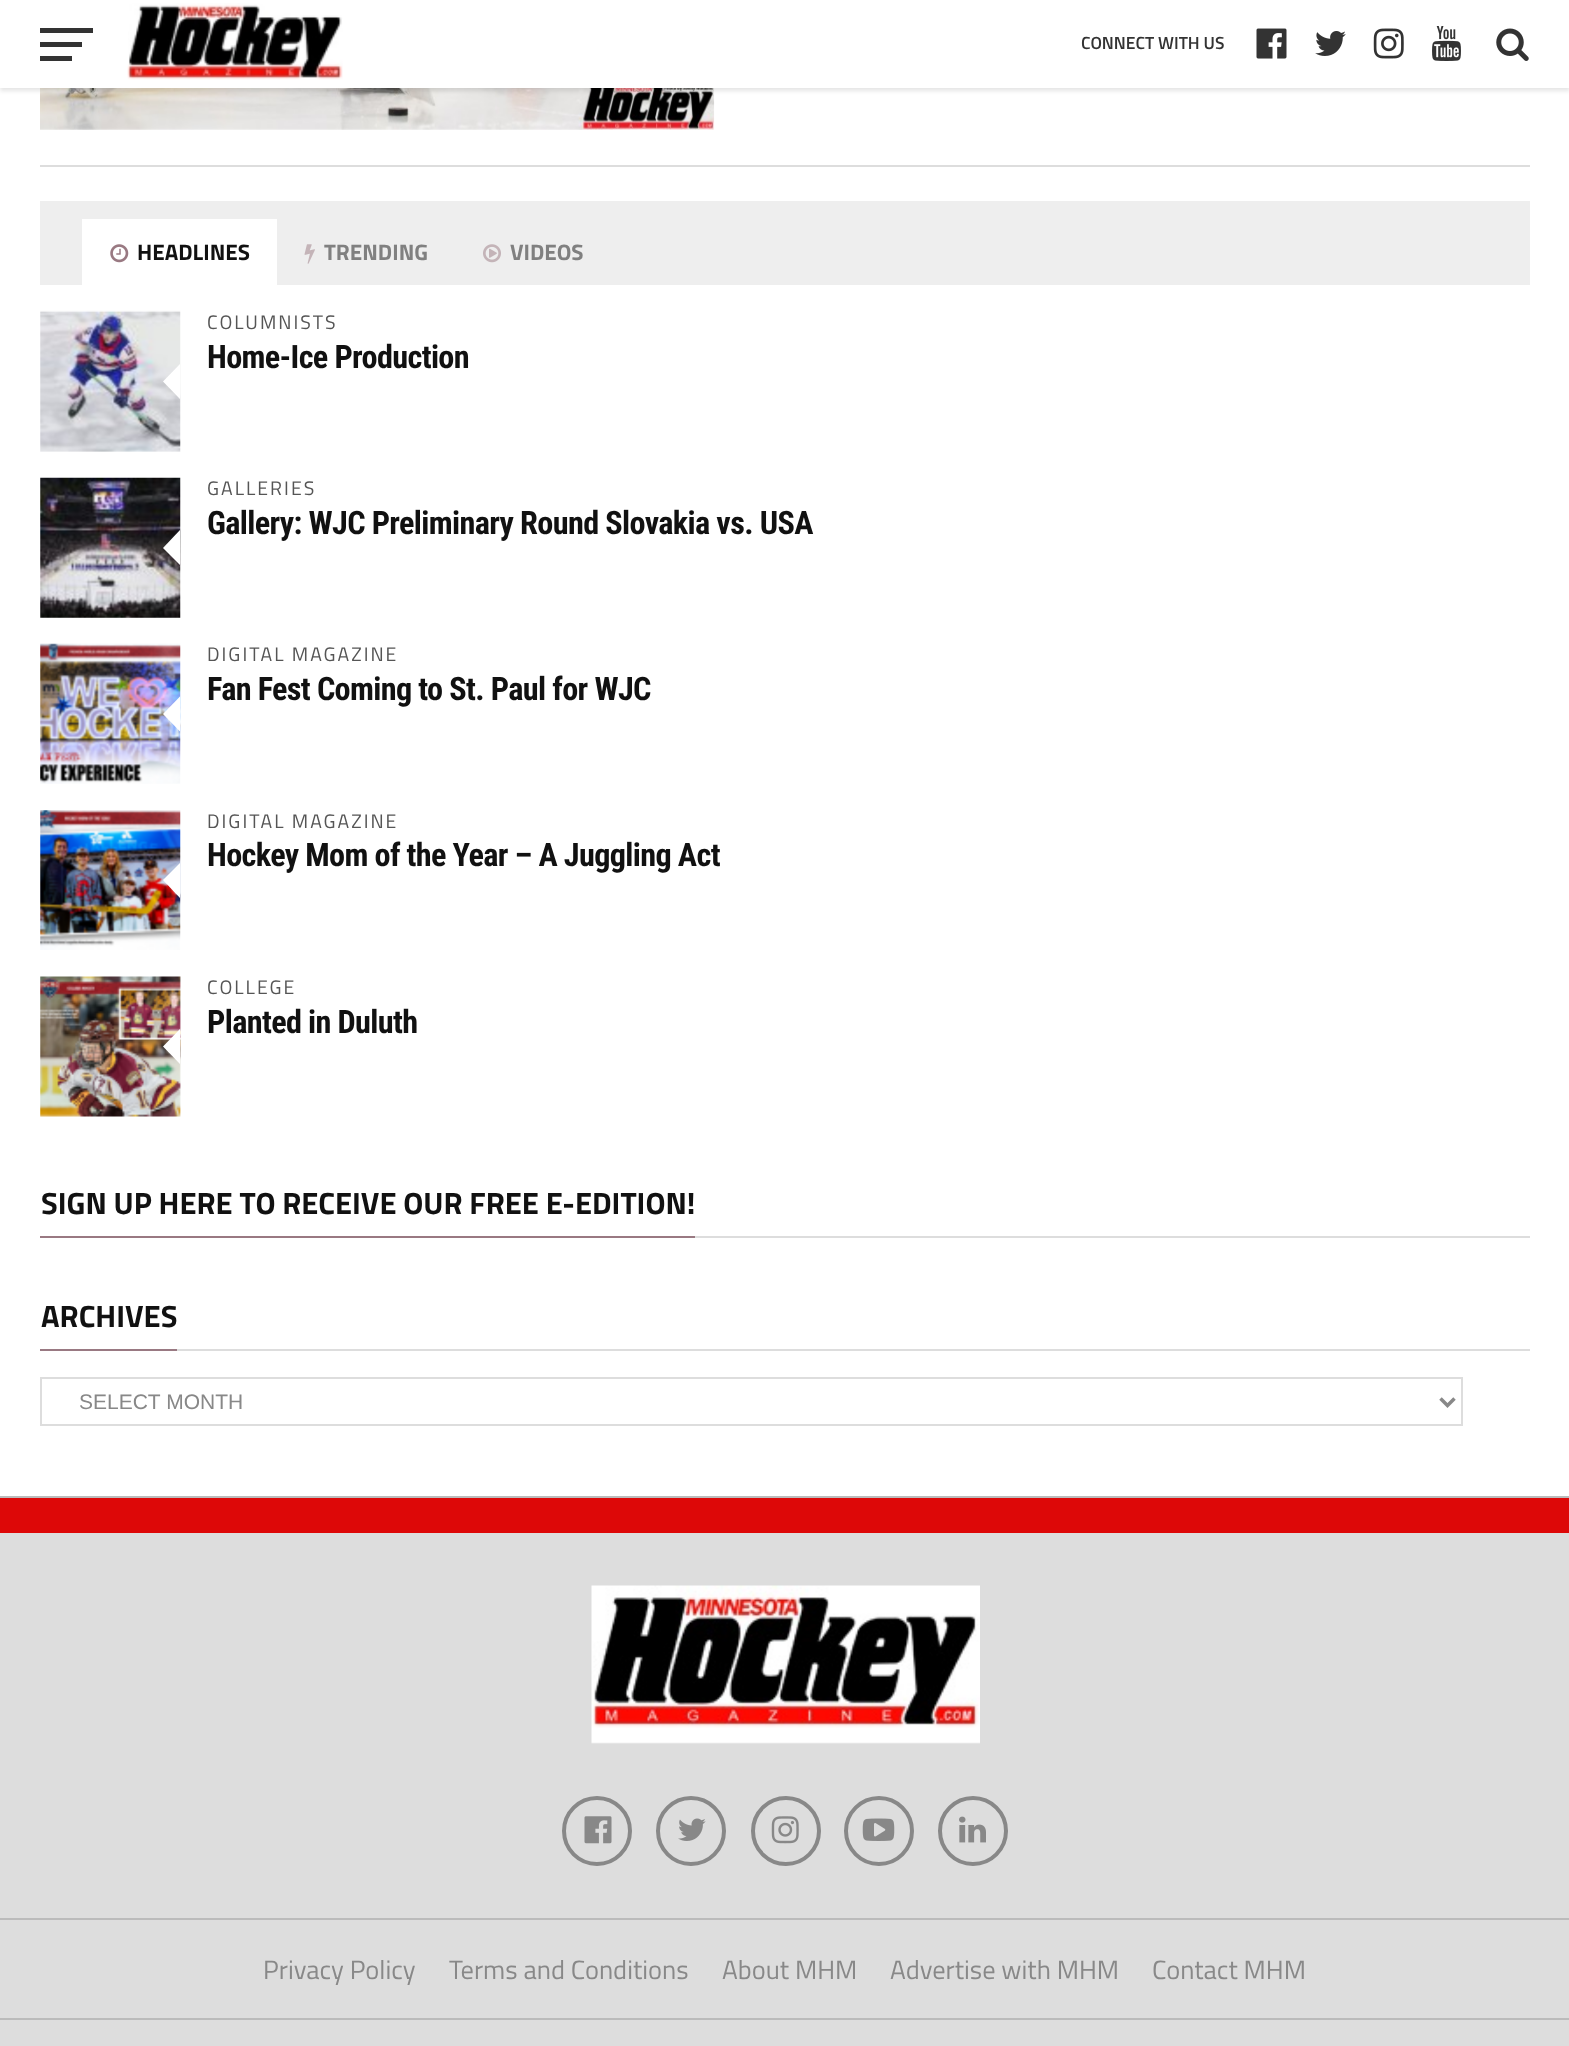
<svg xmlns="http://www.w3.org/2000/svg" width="1569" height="2046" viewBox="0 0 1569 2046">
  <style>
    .t1 { font: 600 17.5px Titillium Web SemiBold; fill: #333; }
    .t2 { font: bold 22.5px Titillium Web; fill: #111; }
    .t3 { font: bold 22.5px Titillium Web; fill: #808080; }
    .t4 { font: 19.5px Titillium Web; letter-spacing: 2px; fill: #555; }
    .t5 { font: bold 32.25px Roboto Condensed; letter-spacing: -0.65px; fill: #111; }
    .t6 { font: bold 30.8px Titillium Web; fill: #111; }
    .t7 { font: 21px Liberation Sans; fill: #888; }
    .t8 { font: 26.5px Titillium Web; fill: #888; }
  </style>
  <rect width="100%" height="100%" fill="#dd0808"/>
  <rect x="0" y="88" width="1569" height="1408" fill="#fff"/>
  <image x="40" y="88" width="675" height="42" href="images/7.png"/>
  <rect x="0" y="4" width="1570" height="87" fill="#0000001a" filter="blur(2px)"/>
  <rect x="0" y="0" width="1569" height="88" fill="#fff"/>
  <rect x="40" y="28" width="53" height="5" fill="#333"/>
  <rect x="40" y="42" width="42" height="5" fill="#333"/>
  <rect x="40" y="56" width="32" height="5" fill="#333"/>
  <image x="127" y="3" width="216" height="77" href="images/1.png"/>
  <text x="1081" y="49" class="t1">CONNECT WITH US</text>
  <image x="1256" y="28" width="31" height="31" href="images/2.png"/>
  <image x="1315" y="31" width="31" height="25" href="images/3.png"/>
  <image x="1373" y="28" width="31" height="31" href="images/4.png"/>
  <image x="1432" y="26" width="29" height="35" href="images/5.png"/>
  <image x="1496" y="28" width="33" height="33" href="images/6.png"/>
  <rect x="0" y="1496" width="1569" height="2" fill="#bbb"/>
  <rect x="40" y="165" width="1490" height="2" fill="#ddd"/>
  <rect x="40" y="201" width="1490" height="84" fill="#eee"/>
  <rect x="82" y="219" width="195" height="66" fill="#fff"/>
  <image x="110" y="244" width="19" height="19" href="images/8.png"/>
  <text x="137" y="260" class="t2">HEADLINES</text>
  <image x="304" y="244" width="11" height="20" href="images/9.png"/>
  <text x="324" y="260" class="t3">TRENDING</text>
  <image x="483" y="244" width="18" height="19" href="images/10.png"/>
  <text x="510" y="260" class="t3">VIDEOS</text>
  <image x="40" y="310" width="141" height="142" href="images/11.png"/>
  <path d="M180 364V399L163 381.5Z" fill="#fff"/>
  <text x="207" y="329" class="t4">COLUMNISTS</text>
  <text x="207" y="368" class="t5">Home-Ice Production</text>
  <image x="40" y="477" width="141" height="141" href="images/12.png"/>
  <path d="M180 530V565L163 548Z" fill="#fff"/>
  <text x="207" y="495" class="t4">GALLERIES</text>
  <text x="207" y="534" class="t5">Gallery: WJC Preliminary Round Slovakia vs. USA</text>
  <image x="40" y="643" width="141" height="141" href="images/13.png"/>
  <path d="M180 696.5V731.5L163 714Z" fill="#fff"/>
  <text x="207" y="661" class="t4">DIGITAL MAGAZINE</text>
  <text x="207" y="700" class="t5">Fan Fest Coming to St. Paul for WJC</text>
  <image x="40" y="810" width="141" height="140" href="images/14.png"/>
  <path d="M180 863V898L163 880Z" fill="#fff"/>
  <text x="207" y="828" class="t4">DIGITAL MAGAZINE</text>
  <text x="207" y="866" class="t5">Hockey Mom of the Year – A Juggling Act</text>
  <image x="40" y="976" width="141" height="141" href="images/15.png"/>
  <path d="M180 1029V1064L163 1046.5Z" fill="#fff"/>
  <text x="207" y="994" class="t4">COLLEGE</text>
  <text x="207" y="1033" class="t5">Planted in Duluth</text>
  <rect x="695" y="1236" width="835" height="2" fill="#ddd"/>
  <rect x="40" y="1236" width="655" height="2" fill="#997982"/>
  <text x="41" y="1214" class="t6">SIGN UP HERE TO RECEIVE OUR FREE E-EDITION!</text>
  <rect x="177" y="1349" width="1353" height="2" fill="#ddd"/>
  <rect x="40" y="1349" width="137" height="2" fill="#997982"/>
  <text x="41" y="1327" class="t6">ARCHIVES</text>
  <rect x="41" y="1378" width="1421" height="47" fill="none" stroke="#ddd" stroke-width="2"/>
  <path d="M1440.5 1398.5L1447.5 1405.5L1454.5 1398.5" fill="none" stroke="#888" stroke-width="3.5"/>
  <text x="79" y="1409" class="t7">SELECT MONTH</text>
  <rect x="0" y="1533" width="1569" height="513" fill="#ddd"/>
  <image x="591" y="1585" width="389" height="159" href="images/16.png"/>
  <circle cx="597" cy="1831" r="33" fill="none" stroke="#888" stroke-width="4"/>
  <image x="584" y="1816" width="28" height="28" href="images/17.png"/>
  <circle cx="691" cy="1831" r="33" fill="none" stroke="#888" stroke-width="4"/>
  <image x="678" y="1818" width="28" height="23" href="images/18.png"/>
  <circle cx="786" cy="1831" r="33" fill="none" stroke="#888" stroke-width="4"/>
  <image x="771" y="1816" width="28" height="28" href="images/19.png"/>
  <circle cx="879" cy="1831" r="33" fill="none" stroke="#888" stroke-width="4"/>
  <image x="862" y="1818" width="33" height="23" href="images/20.png"/>
  <circle cx="973" cy="1831" r="33" fill="none" stroke="#888" stroke-width="4"/>
  <image x="959" y="1816" width="27" height="27" href="images/21.png"/>
  <rect x="0" y="1918" width="1569" height="2" fill="#bbb"/>
  <rect x="0" y="2018" width="1569" height="2" fill="#bbb"/>
  <text x="263" y="1979" class="t8">Privacy Policy</text>
  <text x="449" y="1979" class="t8">Terms and Conditions</text>
  <text x="722" y="1979" class="t8">About MHM</text>
  <text x="890" y="1979" class="t8">Advertise with MHM</text>
  <text x="1152" y="1979" class="t8">Contact MHM</text>
</svg>
